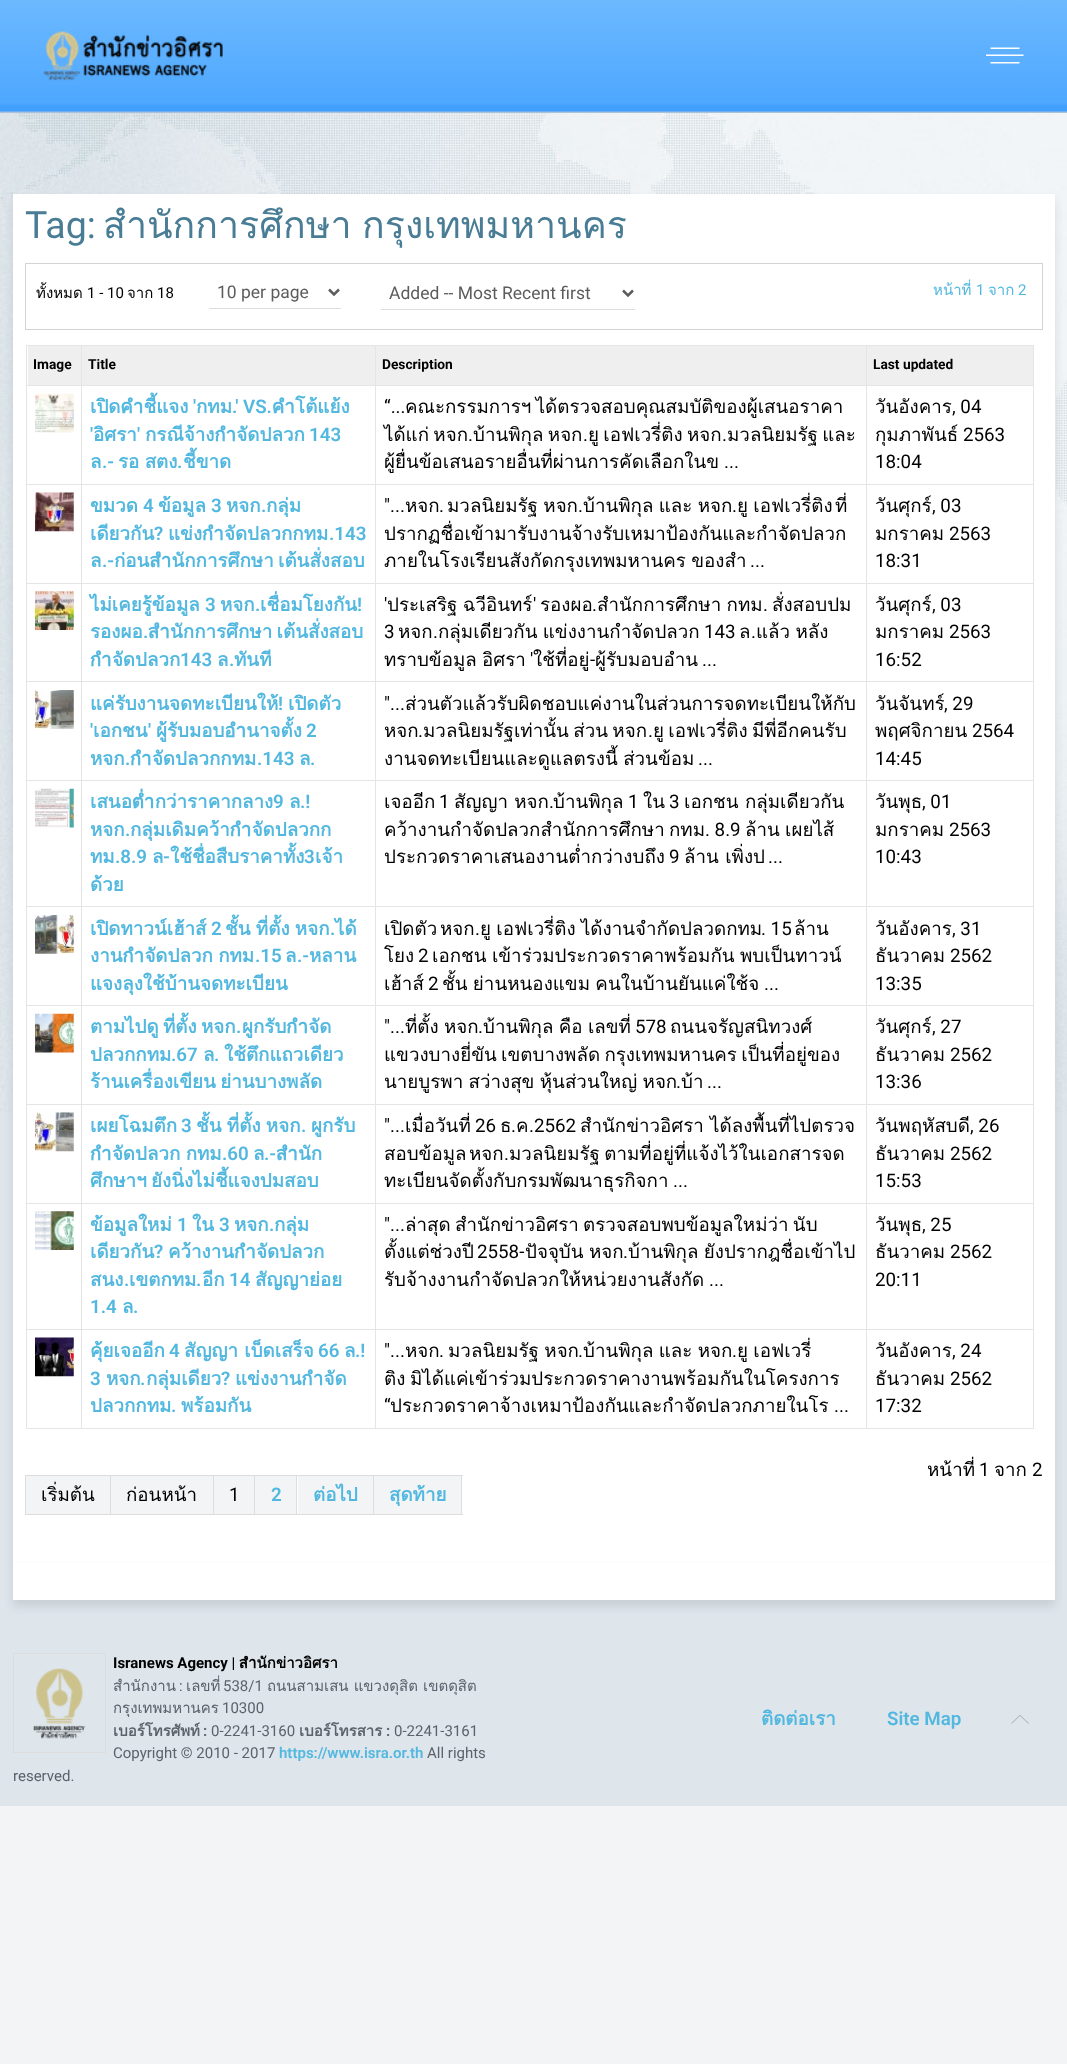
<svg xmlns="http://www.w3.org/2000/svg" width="1067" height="2064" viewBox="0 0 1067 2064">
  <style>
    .t1 { font: 37.5px Roboto; fill: #497c95; }
    .t2 { font: 37.5px Loma; fill: #497c95; }
    .t3 { font: 15px Loma; fill: #000; }
    .t4 { font: 15px Roboto; fill: #000; }
    .t5 { font: 17.5px Roboto; fill: #5c5c5c; }
    .t6 { font: 15px Loma; fill: #52b8df; }
    .t7 { font: 15px Roboto; fill: #52b8df; }
    .t8 { font: bold 13.75px Roboto; fill: #000; }
    .t9 { font: bold 18.75px Loma; fill: #52b8df; }
    .t10 { font: 600 18.75px Roboto; fill: #52b8df; }
    .t11 { font: 18.75px Roboto; fill: #000; }
    .t12 { font: 18.75px Loma; fill: #000; }
    .t13 { font: bold 15px Roboto; fill: #000; }
    .t14 { font: bold 15px Loma; fill: #000; }
    .t15 { font: 15px Loma; fill: #5c626b; }
    .t16 { font: 15px Roboto; fill: #5c626b; }
    .t17 { font: bold 15px Loma; fill: #5c626b; }
    .t18 { font: bold 15px Roboto; fill: #5c626b; }
    .t19 { font: 600 15px Roboto; fill: #52b8df; }
  </style>
  <defs>
    <linearGradient id="g1" gradientUnits="userSpaceOnUse" x1="534" y1="0" x2="534" y2="113"><stop offset="0" stop-color="#6dbaff"/><stop offset="0.04" stop-color="#6bb8ff"/><stop offset="0.91" stop-color="#4ea8ff"/><stop offset="0.94" stop-color="#419fff"/><stop offset="0.98" stop-color="#419fff"/><stop offset="1" stop-color="#c8cdd3"/></linearGradient>
  </defs>
  <rect width="100%" height="100%" fill="#f2f4f5"/>
  <rect x="0" y="1112" width="1067" height="694" fill="#dee5eb"/>
  <image x="0" y="113" width="1067" height="1000" href="images/1.png"/>
  <rect x="0" y="0" width="1067" height="113" fill="url(#g1)"/>
  <image x="43" y="31" width="180" height="50" href="images/2.png"/>
  <path d="M990.5 47.5H1019.5V49H990.5ZM990.5 62H1019.5V63.5H990.5ZM986 54.5H1023.5V56H986Z" fill="#fff"/>
  <rect x="13" y="200" width="1042" height="1369" fill="#a0a6a859" filter="blur(5px)"/>
  <rect x="13" y="194" width="1042" height="1369" fill="#fff"/>
  <text x="25" y="238" class="t1">Tag:</text>
  <text x="103" y="238" word-spacing="-2" class="t2">สำนักการศึกษา กรุงเทพมหานคร</text>
  <rect x="25.5" y="263.5" width="1017" height="66" fill="none" stroke="#d3d3d3"/>
  <text x="36" y="298" class="t3">ทั้งหมด</text>
  <text x="87" y="298" class="t4">1 - 10</text>
  <text x="127" y="298" class="t3">จาก</text>
  <text x="157" y="298" class="t4">18</text>
  <rect x="209" y="308" width="132" height="1" fill="#ddd"/>
  <path d="M329 289.5L334 294.5L339 289.5" fill="none" stroke="#5c5c5c" stroke-width="2.5"/>
  <text x="217" y="298" class="t5">10 per page</text>
  <rect x="381" y="309" width="254" height="1" fill="#ddd"/>
  <path d="M623 290.5L628 295.5L633 290.5" fill="none" stroke="#5c5c5c" stroke-width="2.5"/>
  <text x="389" y="299" class="t5">Added -- Most Recent first</text>
  <text x="933" y="295" class="t6">หน้าที่</text>
  <text x="976" y="295" class="t7">1</text>
  <text x="988" y="295" class="t6">จาก</text>
  <text x="1018" y="295" class="t7">2</text>
  <rect x="26" y="345" width="1008" height="1" fill="#e5e5e5"/>
  <rect x="1033" y="345" width="1" height="1084" fill="#e5e5e5"/>
  <rect x="26" y="1428" width="1008" height="1" fill="#e5e5e5"/>
  <rect x="26" y="345" width="1" height="1084" fill="#e5e5e5"/>
  <rect x="28" y="346" width="347" height="39" fill="#efefef"/>
  <rect x="866" y="1329" width="1" height="100" fill="#e5e5e5"/>
  <rect x="866" y="1329" width="168" height="1" fill="#e5e5e5"/>
  <rect x="866" y="1203" width="1" height="127" fill="#e5e5e5"/>
  <rect x="866" y="1203" width="168" height="1" fill="#e5e5e5"/>
  <rect x="866" y="1104" width="1" height="100" fill="#e5e5e5"/>
  <rect x="866" y="1104" width="168" height="1" fill="#e5e5e5"/>
  <rect x="866" y="1005" width="1" height="100" fill="#e5e5e5"/>
  <rect x="866" y="1005" width="168" height="1" fill="#e5e5e5"/>
  <rect x="866" y="906" width="1" height="100" fill="#e5e5e5"/>
  <rect x="866" y="906" width="168" height="1" fill="#e5e5e5"/>
  <rect x="866" y="780" width="1" height="128" fill="#e5e5e5"/>
  <rect x="866" y="780" width="168" height="1" fill="#e5e5e5"/>
  <rect x="866" y="681" width="1" height="100" fill="#e5e5e5"/>
  <rect x="866" y="681" width="168" height="1" fill="#e5e5e5"/>
  <rect x="866" y="583" width="1" height="100" fill="#e5e5e5"/>
  <rect x="866" y="583" width="168" height="1" fill="#e5e5e5"/>
  <rect x="866" y="484" width="1" height="100" fill="#e5e5e5"/>
  <rect x="866" y="484" width="168" height="1" fill="#e5e5e5"/>
  <rect x="866" y="385" width="1" height="100" fill="#e5e5e5"/>
  <rect x="866" y="385" width="168" height="1" fill="#e5e5e5"/>
  <rect x="866" y="345" width="1" height="41" fill="#e5e5e5"/>
  <rect x="375" y="1329" width="1" height="100" fill="#e5e5e5"/>
  <rect x="375" y="1329" width="493" height="1" fill="#e5e5e5"/>
  <rect x="375" y="1203" width="1" height="127" fill="#e5e5e5"/>
  <rect x="375" y="1203" width="493" height="1" fill="#e5e5e5"/>
  <rect x="375" y="1104" width="1" height="100" fill="#e5e5e5"/>
  <rect x="375" y="1104" width="493" height="1" fill="#e5e5e5"/>
  <rect x="375" y="1005" width="1" height="100" fill="#e5e5e5"/>
  <rect x="375" y="1005" width="493" height="1" fill="#e5e5e5"/>
  <rect x="375" y="906" width="1" height="100" fill="#e5e5e5"/>
  <rect x="375" y="906" width="493" height="1" fill="#e5e5e5"/>
  <rect x="375" y="780" width="1" height="128" fill="#e5e5e5"/>
  <rect x="375" y="780" width="493" height="1" fill="#e5e5e5"/>
  <rect x="375" y="681" width="1" height="100" fill="#e5e5e5"/>
  <rect x="375" y="681" width="493" height="1" fill="#e5e5e5"/>
  <rect x="375" y="583" width="1" height="100" fill="#e5e5e5"/>
  <rect x="375" y="583" width="493" height="1" fill="#e5e5e5"/>
  <rect x="375" y="484" width="1" height="100" fill="#e5e5e5"/>
  <rect x="375" y="484" width="493" height="1" fill="#e5e5e5"/>
  <rect x="375" y="385" width="1" height="100" fill="#e5e5e5"/>
  <rect x="375" y="385" width="493" height="1" fill="#e5e5e5"/>
  <rect x="375" y="345" width="1" height="41" fill="#e5e5e5"/>
  <rect x="81" y="1329" width="1" height="100" fill="#e5e5e5"/>
  <rect x="81" y="1329" width="295" height="1" fill="#e5e5e5"/>
  <rect x="81" y="1203" width="1" height="127" fill="#e5e5e5"/>
  <rect x="81" y="1203" width="295" height="1" fill="#e5e5e5"/>
  <rect x="81" y="1104" width="1" height="100" fill="#e5e5e5"/>
  <rect x="81" y="1104" width="295" height="1" fill="#e5e5e5"/>
  <rect x="81" y="1005" width="1" height="100" fill="#e5e5e5"/>
  <rect x="81" y="1005" width="295" height="1" fill="#e5e5e5"/>
  <rect x="81" y="906" width="1" height="100" fill="#e5e5e5"/>
  <rect x="81" y="906" width="295" height="1" fill="#e5e5e5"/>
  <rect x="81" y="780" width="1" height="128" fill="#e5e5e5"/>
  <rect x="81" y="780" width="295" height="1" fill="#e5e5e5"/>
  <rect x="81" y="681" width="1" height="100" fill="#e5e5e5"/>
  <rect x="81" y="681" width="295" height="1" fill="#e5e5e5"/>
  <rect x="81" y="583" width="1" height="100" fill="#e5e5e5"/>
  <rect x="81" y="583" width="295" height="1" fill="#e5e5e5"/>
  <rect x="81" y="484" width="1" height="100" fill="#e5e5e5"/>
  <rect x="81" y="484" width="295" height="1" fill="#e5e5e5"/>
  <rect x="81" y="385" width="1" height="100" fill="#e5e5e5"/>
  <rect x="81" y="385" width="295" height="1" fill="#e5e5e5"/>
  <rect x="81" y="345" width="1" height="41" fill="#e5e5e5"/>
  <rect x="26" y="385" width="57" height="1" fill="#e5e5e5"/>
  <text x="33" y="369" class="t8">Image</text>
  <text x="88" y="369" class="t8">Title</text>
  <rect x="376" y="346" width="490" height="39" fill="#efefef"/>
  <text x="382" y="369" class="t8">Description</text>
  <rect x="867" y="346" width="166" height="39" fill="#efefef"/>
  <text x="873" y="369" class="t8">Last updated</text>
  <rect x="26" y="484" width="57" height="1" fill="#e5e5e5"/>
  <image x="35" y="393" width="39" height="40" href="images/3.png"/>
  <text x="90" y="413" class="t9">เปิดคำชี้แจง</text>
  <text x="193" y="413" class="t10">'</text>
  <text x="196" y="413" class="t9">กทม</text>
  <text x="232" y="413" class="t10">.' VS.</text>
  <text x="272" y="413" class="t9">คำโต้แย้ง</text>
  <text x="90" y="441" class="t10">'</text>
  <text x="93" y="441" class="t9">อิศรา</text>
  <text x="145" y="441" class="t9">กรณีจ้างกำจัดปลวก</text>
  <text x="137" y="441" class="t10">'</text>
  <text x="309" y="441" class="t10">143</text>
  <text x="90" y="468" class="t9">ล</text>
  <text x="102" y="468" class="t10">.-</text>
  <text x="118" y="468" word-spacing="-1" class="t9">รอ สตง</text>
  <text x="177" y="468" class="t10">.</text>
  <text x="183" y="468" class="t9">ชี้ขาด</text>
  <text x="384" y="413" class="t11">“...</text>
  <text x="405" y="413" word-spacing="-2" class="t12">คณะกรรมการฯ ได้ตรวจสอบคุณสมบัติของผู้เสนอราคา</text>
  <text x="384" y="441" word-spacing="-2" class="t12">ได้แก่ หจก</text>
  <text x="468" y="441" class="t11">.</text>
  <text x="473" y="441" word-spacing="-2" class="t12">บ้านพิกุล หจก</text>
  <text x="583" y="441" class="t11">.</text>
  <text x="588" y="441" word-spacing="-2" class="t12">ยู เอฟเวรี่ติง หจก</text>
  <text x="727" y="441" word-spacing="-2" class="t12">มวลนิยมรัฐ และ</text>
  <text x="722" y="441" class="t11">.</text>
  <text x="384" y="468" class="t12">ผู้ยื่นข้อเสนอรายอื่นที่ผ่านการคัดเลือกในข</text>
  <text x="724" y="468" class="t11">...</text>
  <text x="875" y="413" class="t12">วันอังคาร</text>
  <text x="952" y="413" class="t11">, 04</text>
  <text x="875" y="441" class="t12">กุมภาพันธ์</text>
  <text x="963" y="441" class="t11">2563</text>
  <text x="875" y="468" class="t11">18:04</text>
  <rect x="26" y="583" width="57" height="1" fill="#e5e5e5"/>
  <image x="35" y="492" width="39" height="40" href="images/4.png"/>
  <text x="90" y="512" class="t9">ขมวด</text>
  <text x="143" y="512" class="t10">4</text>
  <text x="158" y="512" class="t9">ข้อมูล</text>
  <text x="211" y="512" class="t10">3</text>
  <text x="226" y="512" class="t9">หจก</text>
  <text x="261" y="512" class="t10">.</text>
  <text x="266" y="512" class="t9">กลุ่ม</text>
  <text x="90" y="540" class="t9">เดียวกัน</text>
  <text x="154" y="540" class="t10">?</text>
  <text x="168" y="540" class="t9">แข่งกำจัดปลวกกทม</text>
  <text x="329" y="540" class="t10">.143</text>
  <text x="90" y="567" class="t9">ล</text>
  <text x="102" y="567" class="t10">.-</text>
  <text x="114" y="567" word-spacing="-2" class="t9">ก่อนสำนักการศึกษา เต้นสั่งสอบ</text>
  <text x="384" y="512" class="t11">"...</text>
  <text x="405" y="512" class="t12">หจก</text>
  <text x="439" y="512" class="t11">.</text>
  <text x="447" y="512" word-spacing="-1" class="t12">มวลนิยมรัฐ หจก</text>
  <text x="578" y="512" class="t11">.</text>
  <text x="583" y="512" word-spacing="-1" class="t12">บ้านพิกุล และ หจก</text>
  <text x="732" y="512" class="t11">.</text>
  <text x="737" y="512" word-spacing="-1" class="t12">ยู เอฟเวรี่ติง</text>
  <text x="835" y="512" class="t12">ที่</text>
  <text x="384" y="540" class="t12">ปรากฏชื่อเข้ามารับงานจ้างรับเหมาป้องกันและกำจัดปลวก</text>
  <text x="384" y="567" word-spacing="-1" class="t12">ภายในโรงเรียนสังกัดกรุงเทพมหานคร ของสำ</text>
  <text x="750" y="567" class="t11">...</text>
  <text x="875" y="512" class="t12">วันศุกร์</text>
  <text x="932" y="512" class="t11">, 03</text>
  <text x="875" y="540" class="t12">มกราคม</text>
  <text x="949" y="540" class="t11">2563</text>
  <text x="875" y="567" class="t11">18:31</text>
  <rect x="26" y="681" width="57" height="1" fill="#e5e5e5"/>
  <image x="35" y="591" width="39" height="39" href="images/5.png"/>
  <text x="90" y="611" class="t9">ไม่เคยรู้ข้อมูล</text>
  <text x="205" y="611" class="t10">3</text>
  <text x="220" y="611" class="t9">หจก</text>
  <text x="255" y="611" class="t10">.</text>
  <text x="260" y="611" class="t9">เชื่อมโยงกัน</text>
  <text x="357" y="611" class="t10">!</text>
  <text x="90" y="638" class="t9">รองผอ</text>
  <text x="143" y="638" class="t10">.</text>
  <text x="148" y="638" word-spacing="-2" class="t9">สำนักการศึกษา เต้นสั่งสอบ</text>
  <text x="90" y="666" class="t9">กำจัดปลวก</text>
  <text x="180" y="666" class="t10">143</text>
  <text x="217" y="666" class="t9">ล</text>
  <text x="229" y="666" class="t10">.</text>
  <text x="234" y="666" class="t9">ทันที</text>
  <text x="384" y="611" class="t11">'</text>
  <text x="387" y="611" word-spacing="-1" class="t12">ประเสริฐ ฉวีอินทร์</text>
  <text x="533" y="611" class="t11">'</text>
  <text x="592" y="611" class="t11">.</text>
  <text x="597" y="611" word-spacing="-1" class="t12">สำนักการศึกษา กทม</text>
  <text x="763" y="611" class="t11">.</text>
  <text x="772" y="611" class="t12">สั่งสอบปม</text>
  <text x="540" y="611" class="t12">รองผอ</text>
  <text x="384" y="638" class="t11">3</text>
  <text x="398" y="638" class="t12">หจก</text>
  <text x="433" y="638" class="t11">.</text>
  <text x="438" y="638" word-spacing="-1" class="t12">กลุ่มเดียวกัน แข่งงานกำจัดปลวก</text>
  <text x="704" y="638" class="t11">143</text>
  <text x="739" y="638" class="t12">ล</text>
  <text x="751" y="638" class="t11">.</text>
  <text x="756" y="638" word-spacing="-1" class="t12">แล้ว หลัง</text>
  <text x="384" y="666" word-spacing="-1" class="t12">ทราบข้อมูล อิศรา</text>
  <text x="530" y="666" class="t11">'</text>
  <text x="533" y="666" class="t12">ใช้ที่อยู่</text>
  <text x="590" y="666" class="t11">-</text>
  <text x="595" y="666" class="t12">ผู้รับมอบอำน</text>
  <text x="702" y="666" class="t11">...</text>
  <text x="875" y="611" class="t12">วันศุกร์</text>
  <text x="932" y="611" class="t11">, 03</text>
  <text x="875" y="638" class="t12">มกราคม</text>
  <text x="949" y="638" class="t11">2563</text>
  <text x="875" y="666" class="t11">16:52</text>
  <rect x="26" y="780" width="57" height="1" fill="#e5e5e5"/>
  <image x="35" y="690" width="39" height="39" href="images/6.png"/>
  <text x="90" y="710" class="t9">แค่รับงานจดทะเบียนให้</text>
  <text x="278" y="710" class="t10">!</text>
  <text x="288" y="710" class="t9">เปิดตัว</text>
  <text x="90" y="737" class="t10">'</text>
  <text x="148" y="737" class="t10">'</text>
  <text x="156" y="737" class="t9">ผู้รับมอบอำนาจตั้ง</text>
  <text x="93" y="737" class="t9">เอกชน</text>
  <text x="306" y="737" class="t10">2</text>
  <text x="90" y="765" class="t9">หจก</text>
  <text x="125" y="765" class="t10">.</text>
  <text x="130" y="765" class="t9">กำจัดปลวกกทม</text>
  <text x="257" y="765" class="t10">.143</text>
  <text x="299" y="765" class="t9">ล</text>
  <text x="310" y="765" class="t10">.</text>
  <text x="384" y="710" class="t11">"...</text>
  <text x="405" y="710" class="t12">ส่วนตัวแล้วรับผิดชอบแค่งานในส่วนการจดทะเบียนให้กับ</text>
  <text x="384" y="737" class="t12">หจก</text>
  <text x="418" y="737" class="t11">.</text>
  <text x="423" y="737" word-spacing="-2" class="t12">มวลนิยมรัฐเท่านั้น ส่วน หจก</text>
  <text x="648" y="737" class="t11">.</text>
  <text x="653" y="737" word-spacing="-2" class="t12">ยู เอฟเวรี่ติง มีพี่อีกคนรับ</text>
  <text x="384" y="765" word-spacing="-1" class="t12">งานจดทะเบียนและดูแลตรงนี้ ส่วนข้อม</text>
  <text x="698" y="765" class="t11">...</text>
  <text x="875" y="710" class="t12">วันจันทร์</text>
  <text x="944" y="710" class="t11">, 29</text>
  <text x="875" y="737" class="t12">พฤศจิกายน</text>
  <text x="972" y="737" class="t11">2564</text>
  <text x="875" y="765" class="t11">14:45</text>
  <rect x="26" y="906" width="57" height="1" fill="#e5e5e5"/>
  <image x="35" y="788" width="39" height="40" href="images/7.png"/>
  <text x="90" y="808" class="t9">เสนอต่ำกว่าราคากลาง</text>
  <text x="273" y="808" class="t10">9</text>
  <text x="289" y="808" class="t9">ล</text>
  <text x="300" y="808" class="t10">.!</text>
  <text x="90" y="836" class="t9">หจก</text>
  <text x="125" y="836" class="t10">.</text>
  <text x="130" y="836" class="t9">กลุ่มเดิมคว้ากำจัดปลวกก</text>
  <text x="90" y="863" class="t9">ทม</text>
  <text x="115" y="863" class="t10">.8.9</text>
  <text x="152" y="863" class="t9">ล</text>
  <text x="163" y="863" class="t10">-</text>
  <text x="170" y="863" class="t9">ใช้ชื่อสืบราคาทั้ง</text>
  <text x="304" y="863" class="t10">3</text>
  <text x="315" y="863" class="t9">เจ้า</text>
  <text x="90" y="891" class="t9">ด้วย</text>
  <text x="384" y="808" class="t12">เจออีก</text>
  <text x="439" y="808" class="t11">1</text>
  <text x="454" y="808" class="t12">สัญญา หจก</text>
  <text x="549" y="808" class="t11">.</text>
  <text x="553" y="808" class="t12">บ้านพิกุล</text>
  <text x="628" y="808" class="t11">1</text>
  <text x="643" y="808" class="t12">ใน</text>
  <text x="669" y="808" class="t11">3</text>
  <text x="684" y="808" class="t12">เอกชน กลุ่มเดียวกัน</text>
  <text x="384" y="836" class="t12">คว้างานกำจัดปลวกสำนักการศึกษา</text>
  <text x="669" y="836" class="t12">กทม</text>
  <text x="705" y="836" class="t11">. 8.9</text>
  <text x="745" y="836" class="t12">ล้าน</text>
  <text x="785" y="836" class="t12">เผยไส้</text>
  <text x="384" y="863" class="t12">ประกวดราคาเสนองานต่ำกว่างบถึง</text>
  <text x="669" y="863" class="t11">9</text>
  <text x="684" y="863" class="t12">ล้าน เพิ่งป</text>
  <text x="768" y="863" class="t11">...</text>
  <text x="875" y="808" class="t12">วันพุธ</text>
  <text x="922" y="808" class="t11">, 01</text>
  <text x="875" y="836" class="t12">มกราคม</text>
  <text x="949" y="836" class="t11">2563</text>
  <text x="875" y="863" class="t11">10:43</text>
  <rect x="26" y="1005" width="57" height="1" fill="#e5e5e5"/>
  <image x="35" y="915" width="39" height="39" href="images/8.png"/>
  <text x="90" y="935" class="t9">เปิดทาวน์เฮ้าส์</text>
  <text x="211" y="935" class="t10">2</text>
  <text x="225" y="935" word-spacing="-1" class="t9">ชั้น ที่ตั้ง หจก</text>
  <text x="330" y="935" class="t10">.</text>
  <text x="335" y="935" class="t9">ได้</text>
  <text x="90" y="962" word-spacing="-1" class="t9">งานกำจัดปลวก กทม</text>
  <text x="255" y="962" class="t10">.15</text>
  <text x="285" y="962" class="t9">ล</text>
  <text x="297" y="962" class="t10">.-</text>
  <text x="309" y="962" class="t9">หลาน</text>
  <text x="90" y="990" class="t9">แจงลุงใช้บ้านจดทะเบียน</text>
  <text x="384" y="935" class="t12">เปิดตัว</text>
  <text x="440" y="935" class="t12">หจก</text>
  <text x="475" y="935" class="t11">.</text>
  <text x="480" y="935" word-spacing="-1" class="t12">ยู เอฟเวรี่ติง ได้งานจำกัดปลวดกทม</text>
  <text x="761" y="935" class="t11">. 15</text>
  <text x="794" y="935" class="t12">ล้าน</text>
  <text x="384" y="962" class="t12">โยง</text>
  <text x="418" y="962" class="t11">2</text>
  <text x="432" y="962" word-spacing="-1" class="t12">เอกชน เข้าร่วมประกวดราคาพร้อมกัน พบเป็นทาวน์</text>
  <text x="384" y="990" class="t12">เฮ้าส์</text>
  <text x="428" y="990" class="t11">2</text>
  <text x="442" y="990" word-spacing="-1" class="t12">ชั้น ย่านหนองแขม คนในบ้านยันแค่ใช้จ</text>
  <text x="764" y="990" class="t11">...</text>
  <text x="875" y="935" class="t12">วันอังคาร</text>
  <text x="952" y="935" class="t11">, 31</text>
  <text x="875" y="962" class="t12">ธันวาคม</text>
  <text x="950" y="962" class="t11">2562</text>
  <text x="875" y="990" class="t11">13:35</text>
  <rect x="26" y="1104" width="57" height="1" fill="#e5e5e5"/>
  <image x="35" y="1013" width="39" height="40" href="images/9.png"/>
  <text x="90" y="1033" word-spacing="-2" class="t9">ตามไปดู ที่ตั้ง หจก</text>
  <text x="236" y="1033" class="t10">.</text>
  <text x="242" y="1033" class="t9">ผูกรับกำจัด</text>
  <text x="90" y="1061" class="t9">ปลวกกทม</text>
  <text x="171" y="1061" class="t10">.67</text>
  <text x="203" y="1061" class="t9">ล</text>
  <text x="214" y="1061" class="t10">.</text>
  <text x="224" y="1061" class="t9">ใช้ตึกแถวเดียว</text>
  <text x="90" y="1088" word-spacing="-2" class="t9">ร้านเครื่องเขียน ย่านบางพลัด</text>
  <text x="384" y="1033" class="t11">"...</text>
  <text x="405" y="1033" word-spacing="-1" class="t12">ที่ตั้ง หจก</text>
  <text x="478" y="1033" class="t11">.</text>
  <text x="483" y="1033" word-spacing="-1" class="t12">บ้านพิกุล คือ เลขที่</text>
  <text x="635" y="1033" class="t11">578</text>
  <text x="670" y="1033" class="t12">ถนนจรัญสนิทวงศ์</text>
  <text x="384" y="1061" word-spacing="-2" class="t12">แขวงบางยี่ขัน เขตบางพลัด กรุงเทพมหานคร เป็นที่อยู่ของ</text>
  <text x="384" y="1088" word-spacing="-1" class="t12">นายบูรพา สว่างสุข หุ้นส่วนใหญ่ หจก</text>
  <text x="676" y="1088" class="t11">.</text>
  <text x="681" y="1088" class="t12">บ้า</text>
  <text x="707" y="1088" class="t11">...</text>
  <text x="875" y="1033" class="t12">วันศุกร์</text>
  <text x="932" y="1033" class="t11">, 27</text>
  <text x="875" y="1061" class="t12">ธันวาคม</text>
  <text x="950" y="1061" class="t11">2562</text>
  <text x="875" y="1088" class="t11">13:36</text>
  <rect x="26" y="1203" width="57" height="1" fill="#e5e5e5"/>
  <image x="35" y="1112" width="39" height="40" href="images/10.png"/>
  <text x="90" y="1132" class="t9">เผยโฉมตึก</text>
  <text x="181" y="1132" class="t10">3</text>
  <text x="196" y="1132" word-spacing="-1" class="t9">ชั้น ที่ตั้ง หจก</text>
  <text x="301" y="1132" class="t10">.</text>
  <text x="311" y="1132" class="t9">ผูกรับ</text>
  <text x="90" y="1160" word-spacing="-1" class="t9">กำจัดปลวก กทม</text>
  <text x="222" y="1160" class="t10">.60</text>
  <text x="253" y="1160" class="t9">ล</text>
  <text x="264" y="1160" class="t10">.-</text>
  <text x="276" y="1160" class="t9">สำนัก</text>
  <text x="90" y="1187" word-spacing="-2" class="t9">ศึกษาฯ ยังนิ่งไม่ชี้แจงปมสอบ</text>
  <text x="384" y="1132" class="t11">"...</text>
  <text x="405" y="1132" class="t12">เมื่อวันที่</text>
  <text x="475" y="1132" class="t11">26</text>
  <text x="500" y="1132" class="t12">ธ</text>
  <text x="511" y="1132" class="t11">.</text>
  <text x="516" y="1132" class="t12">ค</text>
  <text x="529" y="1132" class="t11">.2562</text>
  <text x="580" y="1132" class="t12">สำนักข่าวอิศรา ได้ลงพื้นที่ไปตรวจ</text>
  <text x="384" y="1160" class="t12">สอบข้อมูล</text>
  <text x="469" y="1160" class="t12">หจก</text>
  <text x="504" y="1160" class="t11">.</text>
  <text x="509" y="1160" word-spacing="-2" class="t12">มวลนิยมรัฐ ตามที่อยู่ที่แจ้งไว้ในเอกสารจด</text>
  <text x="384" y="1187" class="t12">ทะเบียนจัดตั้งกับกรมพัฒนาธุรกิจกา</text>
  <text x="673" y="1187" class="t11">...</text>
  <text x="875" y="1132" class="t12">วันพฤหัสบดี</text>
  <text x="970" y="1132" class="t11">, 26</text>
  <text x="875" y="1160" class="t12">ธันวาคม</text>
  <text x="950" y="1160" class="t11">2562</text>
  <text x="875" y="1187" class="t11">15:53</text>
  <rect x="26" y="1329" width="57" height="1" fill="#e5e5e5"/>
  <image x="35" y="1211" width="39" height="39" href="images/11.png"/>
  <text x="90" y="1231" class="t9">ข้อมูลใหม่</text>
  <text x="177" y="1231" class="t10">1</text>
  <text x="192" y="1231" class="t9">ใน</text>
  <text x="219" y="1231" class="t10">3</text>
  <text x="234" y="1231" class="t9">หจก</text>
  <text x="269" y="1231" class="t10">.</text>
  <text x="274" y="1231" class="t9">กลุ่ม</text>
  <text x="90" y="1258" class="t9">เดียวกัน</text>
  <text x="154" y="1258" class="t10">?</text>
  <text x="168" y="1258" class="t9">คว้างานกำจัดปลวก</text>
  <text x="90" y="1286" class="t9">สนง</text>
  <text x="124" y="1286" class="t10">.</text>
  <text x="129" y="1286" class="t9">เขตกทม</text>
  <text x="196" y="1286" class="t10">.</text>
  <text x="202" y="1286" class="t9">อีก</text>
  <text x="229" y="1286" class="t10">14</text>
  <text x="255" y="1286" class="t9">สัญญาย่อย</text>
  <text x="90" y="1313" class="t10">1.4</text>
  <text x="122" y="1313" class="t9">ล</text>
  <text x="133" y="1313" class="t10">.</text>
  <text x="384" y="1231" class="t11">"...</text>
  <text x="405" y="1231" word-spacing="-2" class="t12">ล่าสุด สำนักข่าวอิศรา ตรวจสอบพบข้อมูลใหม่ว่า นับ</text>
  <text x="384" y="1258" class="t12">ตั้งแต่ช่วงปี</text>
  <text x="477" y="1258" class="t11">2558-</text>
  <text x="525" y="1258" word-spacing="-1" class="t12">ปัจจุบัน หจก</text>
  <text x="623" y="1258" class="t11">.</text>
  <text x="628" y="1258" word-spacing="-1" class="t12">บ้านพิกุล ยังปรากฎชื่อเข้าไป</text>
  <text x="384" y="1286" class="t12">รับจ้างงานกำจัดปลวกให้หน่วยงานสังกัด</text>
  <text x="709" y="1286" class="t11">...</text>
  <text x="875" y="1231" class="t12">วันพุธ</text>
  <text x="922" y="1231" class="t11">, 25</text>
  <text x="875" y="1258" class="t12">ธันวาคม</text>
  <text x="950" y="1258" class="t11">2562</text>
  <text x="875" y="1286" class="t11">20:11</text>
  <image x="35" y="1337" width="39" height="40" href="images/12.png"/>
  <text x="90" y="1357" class="t9">คุ้ยเจออีก</text>
  <text x="169" y="1357" class="t10">4</text>
  <text x="184" y="1357" class="t9">สัญญา เบ็ดเสร็จ</text>
  <text x="318" y="1357" class="t10">66</text>
  <text x="344" y="1357" class="t9">ล</text>
  <text x="355" y="1357" class="t10">.!</text>
  <text x="90" y="1385" class="t10">3</text>
  <text x="106" y="1385" class="t9">หจก</text>
  <text x="140" y="1385" class="t10">.</text>
  <text x="146" y="1385" class="t9">กลุ่มเดียว</text>
  <text x="221" y="1385" class="t10">?</text>
  <text x="235" y="1385" class="t9">แข่งงานกำจัด</text>
  <text x="90" y="1412" class="t9">ปลวกกทม</text>
  <text x="171" y="1412" class="t10">.</text>
  <text x="181" y="1412" class="t9">พร้อมกัน</text>
  <text x="384" y="1357" class="t11">"...</text>
  <text x="405" y="1357" class="t12">หจก</text>
  <text x="439" y="1357" class="t11">.</text>
  <text x="448" y="1357" word-spacing="-1" class="t12">มวลนิยมรัฐ หจก</text>
  <text x="578" y="1357" class="t11">.</text>
  <text x="583" y="1357" word-spacing="-1" class="t12">บ้านพิกุล และ หจก</text>
  <text x="732" y="1357" class="t11">.</text>
  <text x="737" y="1357" word-spacing="-1" class="t12">ยู เอฟเวรี่</text>
  <text x="384" y="1385" class="t12">ติง</text>
  <text x="410" y="1385" class="t12">มิได้แค่เข้าร่วมประกวดราคางานพร้อมกันในโครงการ</text>
  <text x="384" y="1412" class="t11">“</text>
  <text x="390" y="1412" class="t12">ประกวดราคาจ้างเหมาป้องกันและกำจัดปลวกภายในโร</text>
  <text x="834" y="1412" class="t11">...</text>
  <text x="875" y="1357" class="t12">วันอังคาร</text>
  <text x="952" y="1357" class="t11">, 24</text>
  <text x="875" y="1385" class="t12">ธันวาคม</text>
  <text x="950" y="1385" class="t11">2562</text>
  <text x="875" y="1412" class="t11">17:32</text>
  <text x="927" y="1476" class="t12">หน้าที่</text>
  <text x="979" y="1476" class="t11">1</text>
  <text x="994" y="1476" class="t12">จาก</text>
  <text x="1032" y="1476" class="t11">2</text>
  <rect x="25.5" y="1475.5" width="85" height="39" fill="#f2f4f5" stroke="#ddd"/>
  <text x="41" y="1501" class="t12">เริ่มต้น</text>
  <rect x="111" y="1476" width="102" height="38" fill="#f2f4f5"/>
  <rect x="111" y="1475" width="352" height="1" fill="#ddd"/>
  <rect x="213" y="1475" width="1" height="40" fill="#ddd"/>
  <rect x="111" y="1514" width="103" height="1" fill="#ddd"/>
  <text x="126" y="1501" class="t12">ก่อนหน้า</text>
  <rect x="214" y="1476" width="40" height="38" fill="#f2f4f5"/>
  <rect x="254" y="1475" width="1" height="40" fill="#ddd"/>
  <rect x="214" y="1514" width="41" height="1" fill="#ddd"/>
  <text x="229" y="1501" class="t11">1</text>
  <rect x="255" y="1476" width="41" height="38" fill="#f2f4f5"/>
  <rect x="296" y="1475" width="1" height="40" fill="#ddd"/>
  <rect x="255" y="1514" width="43" height="1" fill="#ddd"/>
  <text x="271" y="1501" class="t10">2</text>
  <rect x="298" y="1476" width="75" height="38" fill="#f2f4f5"/>
  <rect x="373" y="1475" width="1" height="40" fill="#ddd"/>
  <rect x="298" y="1514" width="76" height="1" fill="#ddd"/>
  <text x="313" y="1501" class="t9">ต่อไป</text>
  <rect x="374" y="1476" width="87" height="38" fill="#f2f4f5"/>
  <rect x="461" y="1475" width="1" height="40" fill="#ddd"/>
  <rect x="374" y="1514" width="89" height="1" fill="#ddd"/>
  <text x="389" y="1501" class="t9">สุดท้าย</text>
  <rect x="13" y="1569" width="1042" height="37" fill="#a0a6a859" filter="blur(5px)"/>
  <rect x="13" y="1563" width="1042" height="37" fill="#fff"/>
  <rect x="13.5" y="1653.5" width="92" height="99" fill="none" stroke="#ddd"/>
  <image x="33" y="1668" width="53" height="71" href="images/13.png"/>
  <text x="113" y="1668" class="t13">Isranews Agency |</text>
  <text x="239" y="1668" class="t14">สำนักข่าวอิศรา</text>
  <text x="113" y="1691" class="t15">สำนักงาน</text>
  <text x="179" y="1691" class="t16">:</text>
  <text x="186" y="1691" class="t15">เลขที่</text>
  <text x="223" y="1691" class="t16">538/1</text>
  <text x="267" y="1691" class="t15">ถนนสามเสน แขวงดุสิต เขตดุสิต</text>
  <text x="113" y="1713" class="t15">กรุงเทพมหานคร</text>
  <text x="222" y="1713" class="t16">10300</text>
  <text x="113" y="1736" class="t17">เบอร์โทรศัพท์</text>
  <text x="203" y="1736" class="t18">:</text>
  <text x="211" y="1736" class="t16">0-2241-3160</text>
  <text x="299" y="1736" class="t17">เบอร์โทรสาร</text>
  <text x="386" y="1736" class="t18">:</text>
  <text x="394" y="1736" class="t16">0-2241-3161</text>
  <text x="113" y="1758" class="t16">Copyright © 2010 - 2017</text>
  <text x="279" y="1758" class="t19">https://www.isra.or.th</text>
  <text x="427" y="1758" class="t16">All rights</text>
  <text x="13" y="1781" class="t16">reserved.</text>
  <text x="761" y="1725" class="t9">ติดต่อเรา</text>
  <text x="887" y="1725" class="t10">Site Map</text>
  <image x="1011" y="1715" width="18" height="9" href="images/14.png"/>
</svg>
